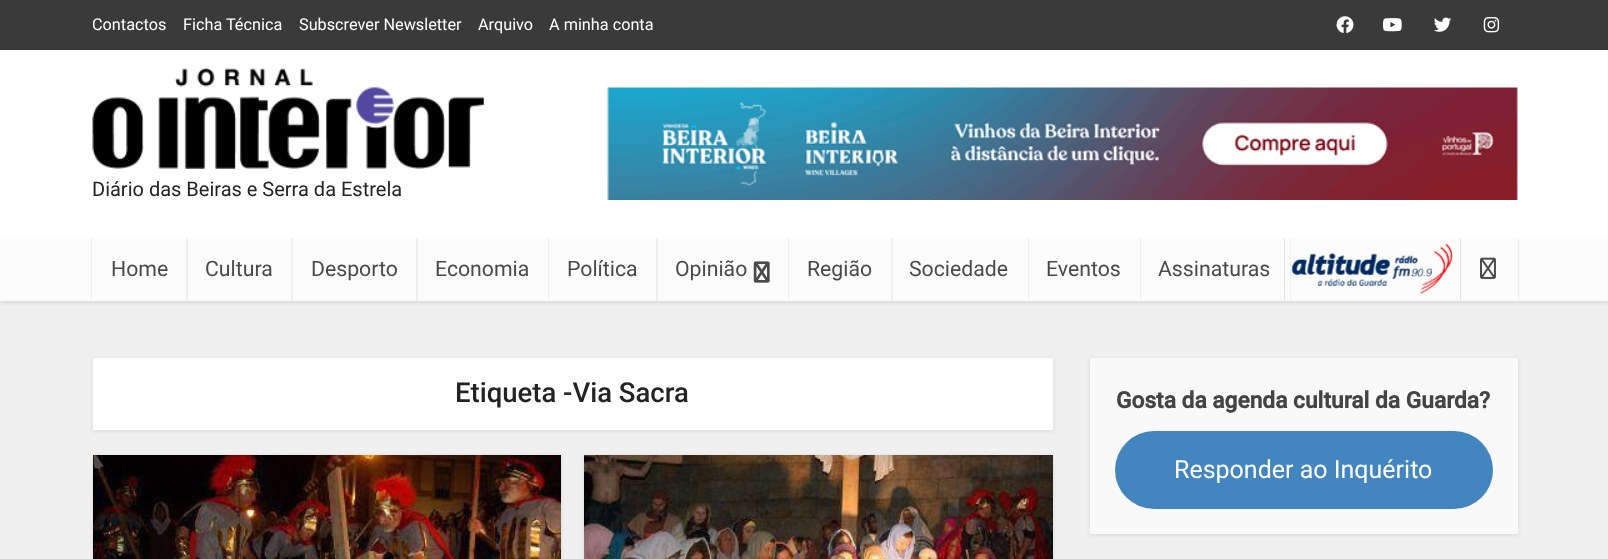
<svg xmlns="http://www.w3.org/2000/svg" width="1608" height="559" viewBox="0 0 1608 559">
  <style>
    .t1 { font: 16.25px Roboto; fill: #fff; }
    .t2 { font: 20px Roboto; fill: #232323; }
    .t3 { font: 21.25px Roboto; fill: #4a4a4a; }
    .t4 { font: 500 27.5px Roboto; fill: #232323; }
    .t5 { font: bold 22.75px Roboto; fill: #444; }
    .t6 { font: 25px Roboto; fill: #fff; }
  </style>
  <rect width="100%" height="100%" fill="#f0f0f0"/>
  <rect x="0" y="1" width="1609" height="302" fill="#0000001a" filter="blur(2px)"/>
  <rect x="0" y="50" width="1608" height="188" fill="#fff"/>
  <rect x="0" y="0" width="1608" height="50" fill="#3a3a3a"/>
  <text x="92" y="30" class="t1">Contactos</text>
  <text x="183" y="30" class="t1">Ficha Técnica</text>
  <text x="299" y="30" class="t1">Subscrever Newsletter</text>
  <text x="478" y="30" class="t1">Arquivo</text>
  <text x="549" y="30" class="t1">A minha conta</text>
  <image x="1336" y="16" width="18" height="17" href="images/1.png"/>
  <image x="1383" y="18" width="19" height="14" href="images/2.png"/>
  <image x="1434" y="17" width="18" height="15" href="images/3.png"/>
  <image x="1483" y="17" width="17" height="16" href="images/4.png"/>
  <image x="92" y="68" width="392" height="101" href="images/5.png"/>
  <text x="92" y="196" class="t2">Diário das Beiras e Serra da Estrela</text>
  <image x="607" y="87" width="911" height="113" href="images/6.png"/>
  <rect x="0" y="238" width="1608" height="63" fill="#fcfcfc"/>
  <rect x="1460" y="300" width="1" height="1" fill="#efefef"/>
  <rect x="186" y="238" width="2" height="63" fill="#efefef"/>
  <rect x="91" y="238" width="1" height="63" fill="#efefef"/>
  <text x="111" y="276" class="t3">Home</text>
  <rect x="291" y="238" width="2" height="63" fill="#efefef"/>
  <text x="205" y="276" class="t3">Cultura</text>
  <rect x="416" y="238" width="2" height="63" fill="#efefef"/>
  <text x="311" y="276" class="t3">Desporto</text>
  <rect x="548" y="238" width="1" height="63" fill="#efefef"/>
  <text x="435" y="276" class="t3">Economia</text>
  <rect x="656" y="238" width="2" height="63" fill="#efefef"/>
  <text x="567" y="276" class="t3">Política</text>
  <rect x="788" y="238" width="1" height="63" fill="#efefef"/>
  <text x="675" y="276" class="t3">Opinião</text>
  <image x="753" y="261" width="17" height="22" href="images/7.png"/>
  <rect x="891" y="238" width="2" height="63" fill="#efefef"/>
  <text x="807" y="276" class="t3">Região</text>
  <rect x="1028" y="238" width="1" height="63" fill="#efefef"/>
  <text x="909" y="276" class="t3">Sociedade</text>
  <rect x="1140" y="238" width="1" height="63" fill="#efefef"/>
  <text x="1046" y="276" class="t3">Eventos</text>
  <rect x="1290" y="238" width="1" height="63" fill="#efefef"/>
  <text x="1158" y="276" class="t3">Assinaturas</text>
  <rect x="1284" y="238" width="1" height="62" fill="#e1e1e1"/>
  <rect x="1460" y="238" width="1" height="62" fill="#e3e3e3"/>
  <image x="1291" y="243" width="162" height="51" href="images/8.png"/>
  <rect x="1518" y="238" width="1" height="63" fill="#efefef"/>
  <image x="1480" y="257" width="16" height="22" href="images/9.png"/>
  <rect x="93" y="359" width="960" height="72" fill="#0000001a" filter="blur(2px)"/>
  <rect x="93" y="358" width="960" height="72" fill="#fff"/>
  <text x="455" y="402" class="t4">Etiqueta -Via Sacra</text>
  <rect x="93" y="456" width="468" height="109" fill="#0000001a" filter="blur(2px)"/>
  <image x="93" y="455" width="468" height="104" href="images/10.png"/>
  <rect x="584" y="456" width="469" height="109" fill="#0000001a" filter="blur(2px)"/>
  <image x="584" y="455" width="469" height="104" href="images/11.png"/>
  <rect x="1090" y="359" width="428" height="176" fill="#0000001a" filter="blur(2px)"/>
  <rect x="1090" y="358" width="428" height="176" fill="#f9f9f9"/>
  <text x="1116" y="408" class="t5">Gosta da agenda cultural da Guarda?</text>
  <rect x="1115" y="431" width="378" height="78" rx="39" fill="#4285bf"/>
  <text x="1174" y="478" class="t6">Responder ao Inquérito</text>
</svg>
